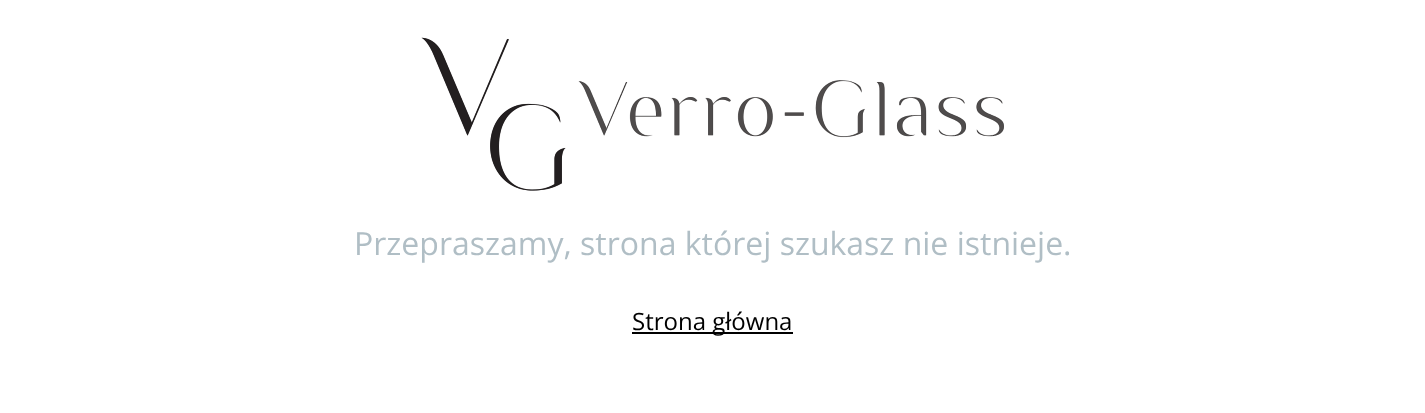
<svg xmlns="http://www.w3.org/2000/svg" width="1425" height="413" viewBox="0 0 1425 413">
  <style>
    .t1 { font: 32px Open Sans; fill: #b0bec5; }
    .t2 { font: 24px Open Sans; fill: #000; }
  </style>
  <rect width="100%" height="100%" fill="#fff"/>
  <image x="421" y="37" width="583" height="154" href="images/1.png"/>
  <text x="354" y="255" class="t1">Przepraszamy, strona której szukasz nie istnieje.</text>
  <rect x="632" y="332" width="161" height="2" fill="#000"/>
  <text x="632" y="330" class="t2">Strona główna</text>
</svg>
